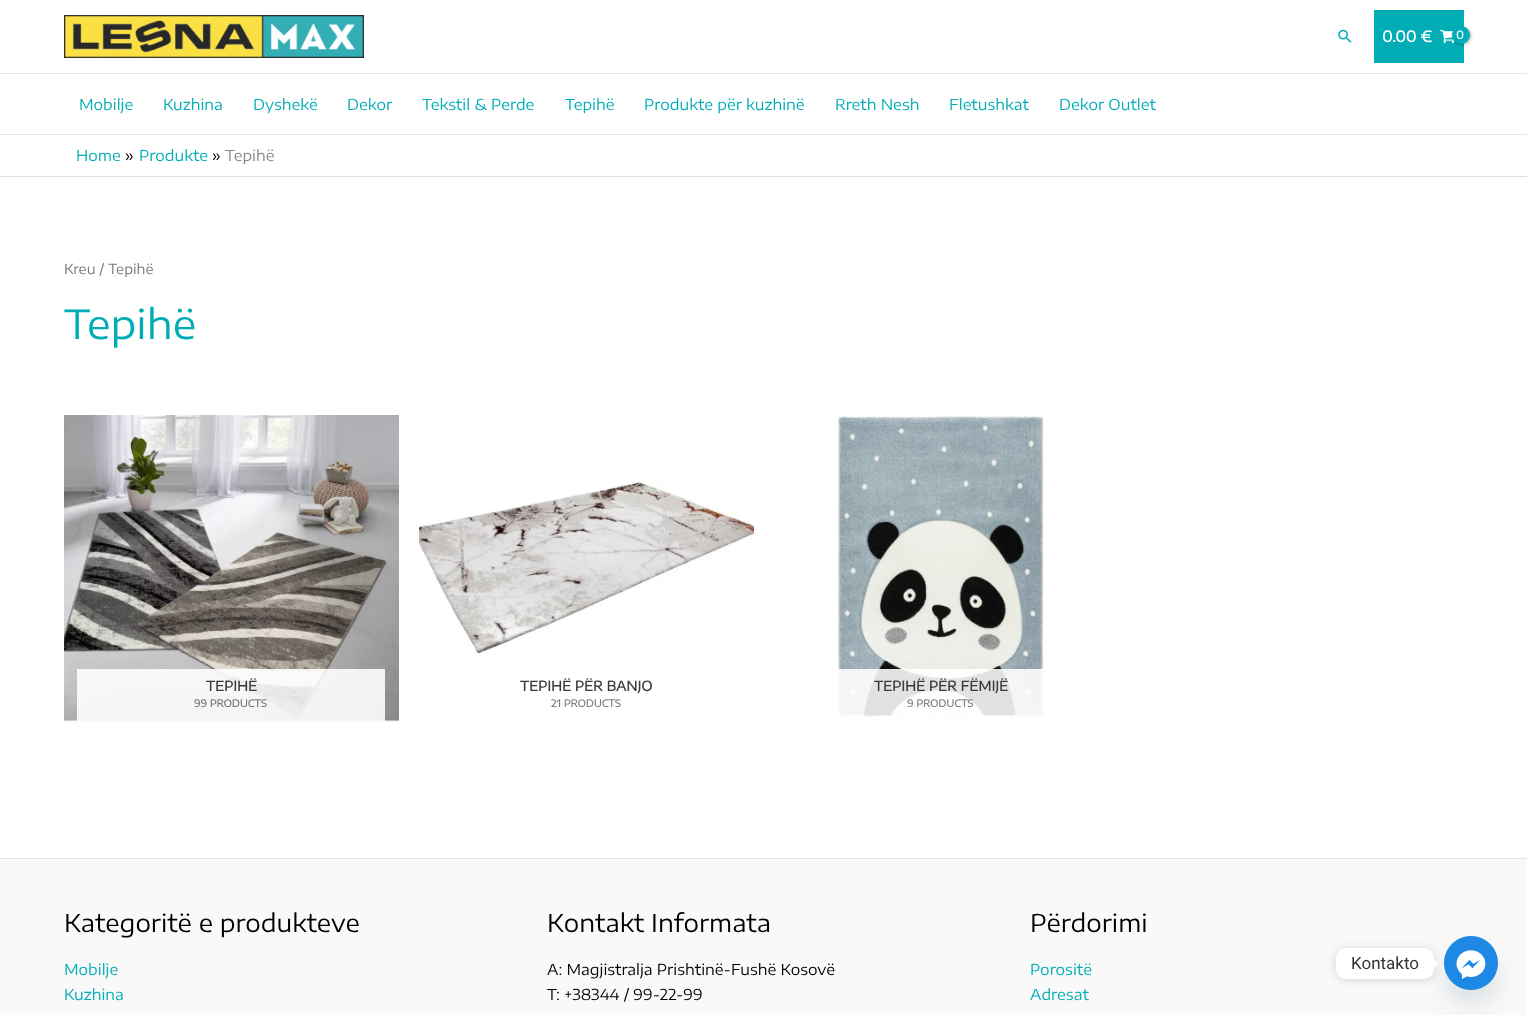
<svg xmlns="http://www.w3.org/2000/svg" width="1527" height="1015" viewBox="0 0 1527 1015">
  <style>
    .t1 { font: bold 15px Encode Sans Expanded; fill: #fff; }
    .t2 { font: bold 11px Encode Sans Expanded; fill: #fff; }
    .t3 { font: 15px Encode Sans Expanded; fill: #00adb5; }
    .t4 { font: 15px Encode Sans Expanded; fill: #000; }
    .t5 { font: 15px Encode Sans Expanded; fill: #878787; }
    .t6 { font: 13.75px Encode Sans Expanded; fill: #777; }
    .t7 { font: 40px Encode Sans Expanded; fill: #00adb5; }
    .t8 { font: bold 13.5px Encode Sans Expanded; fill: #3a3a3a; }
    .t9 { font: bold 10px Encode Sans Expanded; fill: #777; }
    .t10 { font: bold 10px Encode Sans Expanded; fill: #808080; }
    .t11 { font: 24.4px Encode Sans Expanded; fill: #000; }
    .t12 { font: 17px Roboto; fill: #333; }
  </style>
  <rect width="100%" height="100%" fill="#fff"/>
  <rect x="0" y="73" width="1527" height="1" fill="#e5e5e5"/>
  <image x="64" y="15" width="300" height="43" href="images/1.png"/>
  <image x="1338" y="29" width="14" height="14" href="images/2.png"/>
  <rect x="1374" y="10" width="90" height="53" fill="#00adb5"/>
  <text x="1382" y="42" class="t1">0.00 €</text>
  <image x="1440" y="30" width="15" height="13" href="images/3.png"/>
  <rect x="1453" y="27" width="18" height="18" rx="9" fill="#0000004d" filter="blur(1.5px)"/>
  <circle cx="1461" cy="35" r="9" fill="#00adb5"/>
  <text x="1456" y="39" class="t2">0</text>
  <rect x="0" y="134" width="1527" height="1" fill="#e5e5e5"/>
  <text x="79" y="110" class="t3">Mobilje</text>
  <text x="163" y="110" class="t3">Kuzhina</text>
  <text x="253" y="110" class="t3">Dyshekë</text>
  <text x="347" y="110" class="t3">Dekor</text>
  <text x="422" y="110" class="t3">Tekstil &amp; Perde</text>
  <text x="565" y="110" class="t3">Tepihë</text>
  <text x="644" y="110" class="t3">Produkte për kuzhinë</text>
  <text x="835" y="110" class="t3">Rreth Nesh</text>
  <text x="949" y="110" class="t3">Fletushkat</text>
  <text x="1059" y="110" class="t3">Dekor Outlet</text>
  <rect x="0" y="176" width="1527" height="1" fill="#ddd"/>
  <text x="76" y="161" class="t3">Home</text>
  <text x="125" y="161" class="t4">»</text>
  <text x="139" y="161" class="t3">Produkte</text>
  <text x="212" y="161" class="t4">»</text>
  <text x="225" y="161" class="t5">Tepihë</text>
  <text x="64" y="274" class="t6">Kreu / Tepihë</text>
  <text x="64" y="339" class="t7">Tepihë</text>
  <image x="64" y="415" width="335" height="307" href="images/4.png"/>
  <rect x="77" y="669" width="308" height="52" fill="#ffffffe0"/>
  <text x="206" y="691" class="t8">TEPIHË</text>
  <text x="194" y="707" class="t9">99 PRODUCTS</text>
  <image x="419" y="481" width="335" height="174" href="images/5.png"/>
  <text x="520" y="691" class="t8">TEPIHË PËR BANJO</text>
  <text x="551" y="707" class="t10">21 PRODUCTS</text>
  <image x="838" y="416" width="206" height="301" href="images/6.png"/>
  <rect x="838" y="669" width="206" height="48" fill="#ffffffe0"/>
  <text x="874" y="691" class="t8">TEPIHË PËR FËMIJË</text>
  <text x="907" y="707" class="t10">9 PRODUCTS</text>
  <rect x="0" y="859" width="1527" height="156" fill="#f9f9f9"/>
  <rect x="0" y="858" width="1527" height="1" fill="#e5e5e5"/>
  <text x="64" y="932" class="t11">Kategoritë e produkteve</text>
  <text x="64" y="975" class="t3">Mobilje</text>
  <text x="64" y="1000" class="t3">Kuzhina</text>
  <text x="547" y="932" class="t11">Kontakt Informata</text>
  <text x="547" y="975" class="t4">A: Magjistralja Prishtinë-Fushë Kosovë</text>
  <text x="547" y="1000" class="t4">T: +38344 / 99-22-99</text>
  <text x="1030" y="932" class="t11">Përdorimi</text>
  <text x="1030" y="975" class="t3">Porositë</text>
  <text x="1030" y="1000" class="t3">Adresat</text>
  <rect x="1444" y="952" width="54" height="54" rx="27" fill="#49687e29" filter="blur(12px)"/>
  <image x="1444" y="936" width="54" height="54" href="images/7.png"/>
  <rect x="1336" y="949" width="98" height="31" rx="10" fill="#00000026" filter="blur(4px)"/>
  <rect x="1336" y="948" width="98" height="31" rx="10" fill="#fff"/>
  <text x="1351" y="969" class="t12">Kontakto</text>
  <path d="M1434 968.5V958.5L1439 963.5Z" fill="#fff"/>
</svg>
